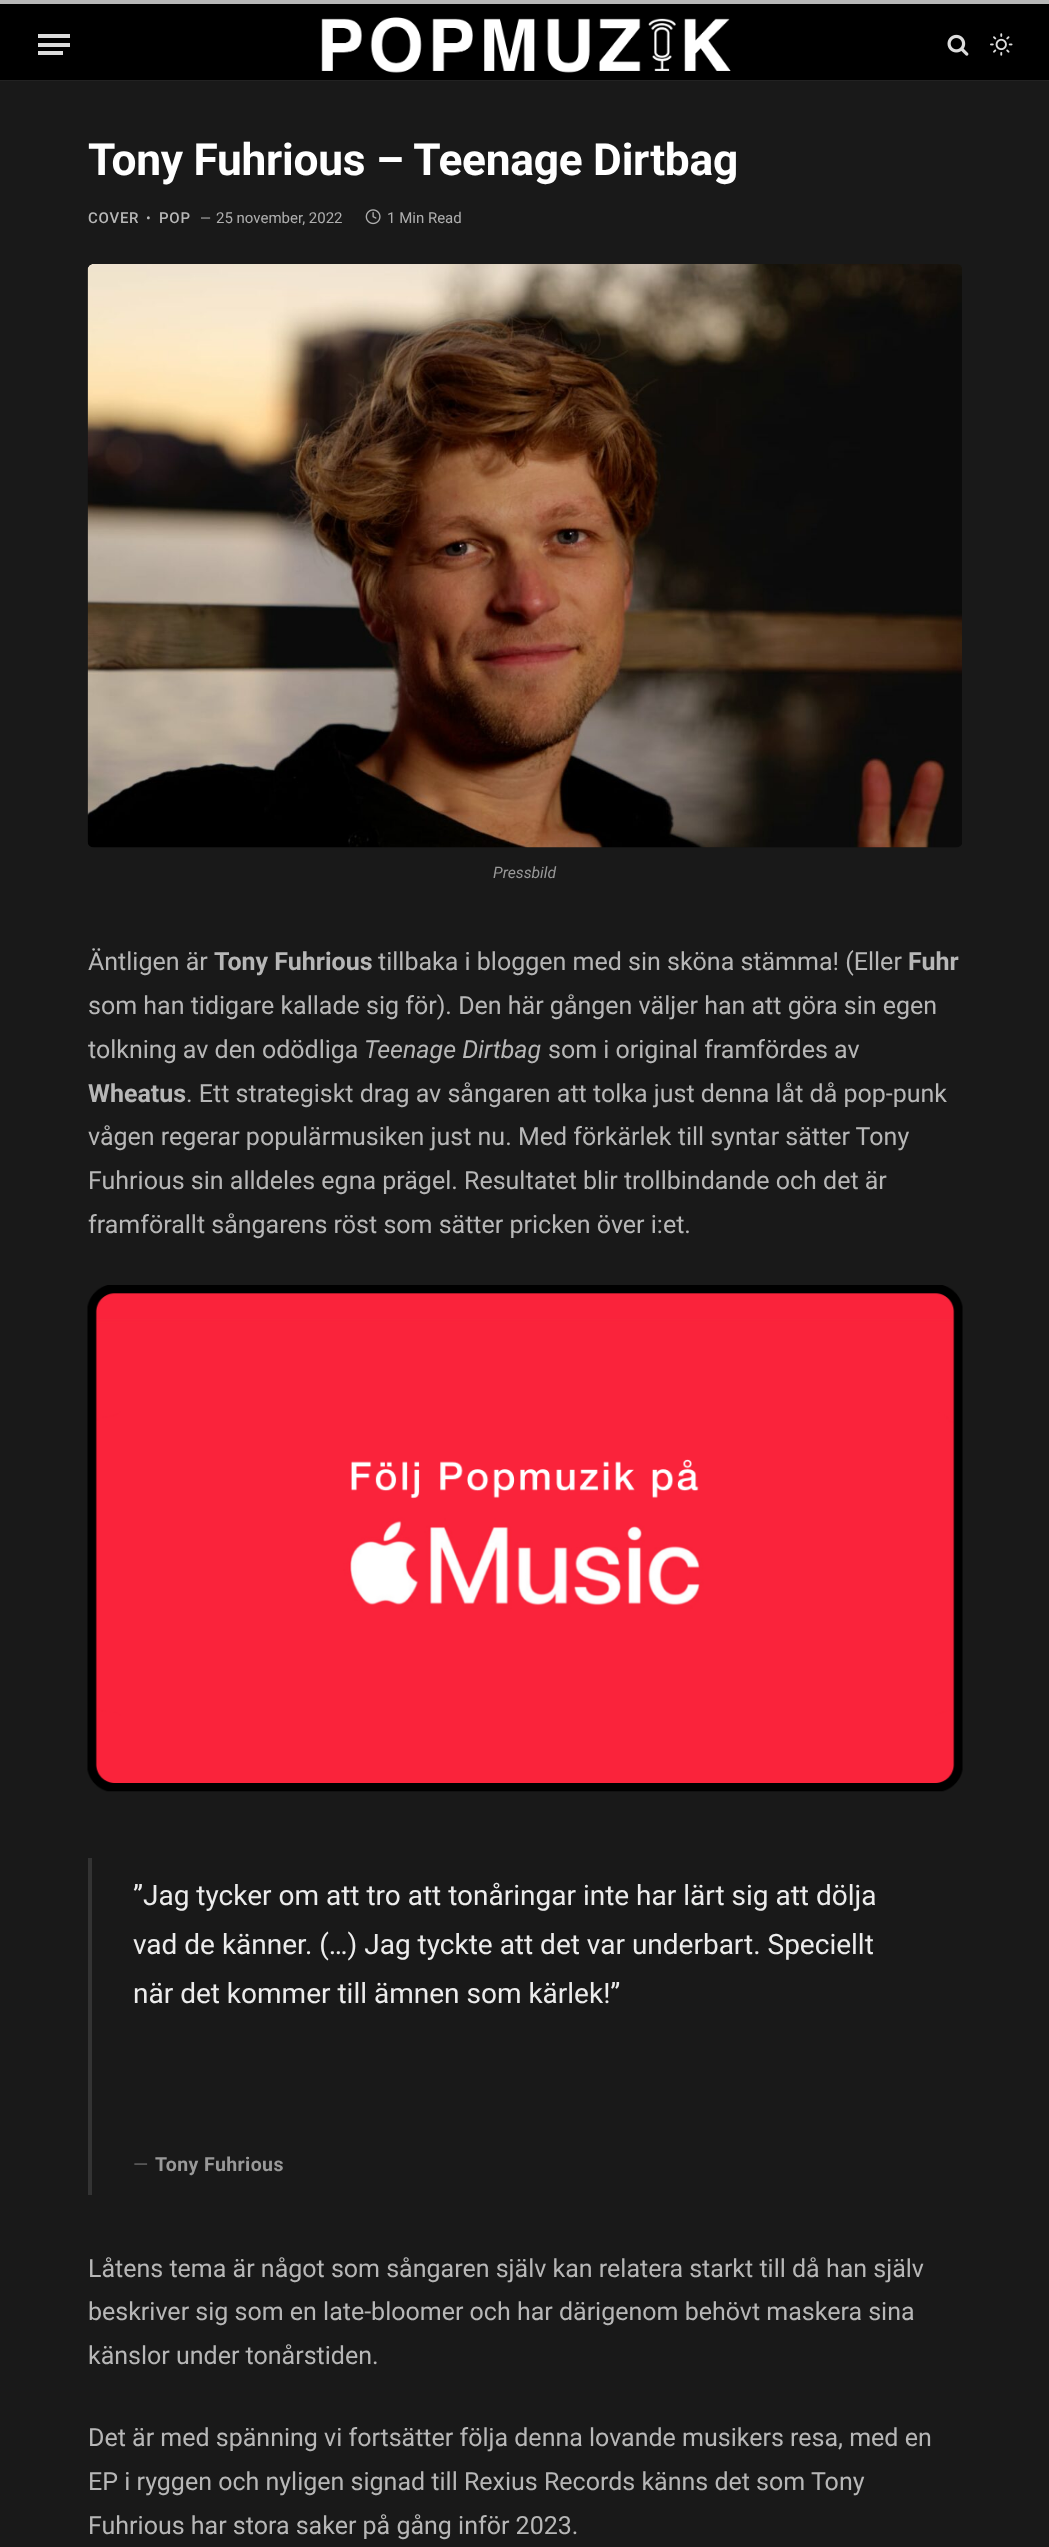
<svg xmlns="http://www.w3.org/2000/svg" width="1049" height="2547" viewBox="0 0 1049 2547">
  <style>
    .t1 { font: bold 44.25px Roboto; letter-spacing: -0.25px; fill: #fff; }
    .t2 { font: 500 15px Roboto; letter-spacing: 0.75px; fill: #b7b7b7; }
    .t3 { font: 14px Roboto; letter-spacing: 0.75px; fill: #b7b7b7; }
    .t4 { font: 14px Roboto; fill: #afafaf; }
    .t5 { font: 15px Roboto; fill: #afafaf; }
    .t6 { font: italic 15.75px Roboto; fill: #999; }
    .t7 { font: 25px Roboto; fill: #b7b7b7; }
    .t8 { font: bold 25px Roboto; fill: #b7b7b7; }
    .t9 { font: italic 25px Roboto; fill: #b7b7b7; }
    .t10 { font: 28px Roboto; fill: #ececec; }
    .t11 { font: 19.5px Roboto; letter-spacing: 0.4px; fill: #666; }
    .t12 { font: bold 19.5px Roboto; letter-spacing: 0.4px; fill: #999; }
  </style>
  <rect width="100%" height="100%" fill="#191919"/>
  <rect x="0" y="4" width="1049" height="76" fill="#000"/>
  <rect x="0" y="0" width="1049" height="4" fill="#b7b7b7"/>
  <rect x="0" y="80" width="1049" height="1" fill="#222"/>
  <rect x="38" y="51" width="25" height="4" fill="#ddd"/>
  <rect x="38" y="34" width="32" height="4" fill="#ddd"/>
  <rect x="38" y="43" width="32" height="4" fill="#ddd"/>
  <image x="321" y="17" width="410" height="56" href="images/1.png"/>
  <image x="947" y="34" width="22" height="22" href="images/2.png"/>
  <image x="990" y="33" width="23" height="23" href="images/3.png"/>
  <text x="88" y="175" class="t1">Tony Fuhrious – Teenage Dirtbag</text>
  <text x="88" y="223" class="t2">COVER</text>
  <text x="146" y="223" class="t3">•</text>
  <text x="159" y="223" class="t2">POP</text>
  <text x="200" y="223" class="t4">—</text>
  <text x="216" y="223" class="t5">25 november, 2022</text>
  <image x="365" y="209" width="16" height="16" href="images/4.png"/>
  <text x="387" y="223" class="t5">1 Min Read</text>
  <image x="87" y="264" width="875" height="584" href="images/5.png"/>
  <text x="493" y="878" class="t6">Pressbild</text>
  <text x="88" y="970" class="t7">Äntligen är</text>
  <text x="214" y="970" class="t8">Tony Fuhrious</text>
  <text x="378" y="970" class="t7">tillbaka i bloggen med sin sköna stämma! (Eller</text>
  <text x="908" y="970" class="t8">Fuhr</text>
  <text x="88" y="1014" class="t7">som han tidigare kallade sig för). Den här gången väljer han att göra sin egen</text>
  <text x="88" y="1058" class="t7">tolkning av den odödliga</text>
  <text x="364" y="1058" class="t9">Teenage Dirtbag</text>
  <text x="548" y="1058" class="t7">som i original framfördes av</text>
  <text x="88" y="1102" class="t8">Wheatus</text>
  <text x="186" y="1102" class="t7">. Ett strategiskt drag av sångaren att tolka just denna låt då pop-punk</text>
  <text x="88" y="1145" class="t7">vågen regerar populärmusiken just nu. Med förkärlek till syntar sätter Tony</text>
  <text x="88" y="1189" class="t7">Fuhrious sin alldeles egna prägel. Resultatet blir trollbindande och det är</text>
  <text x="88" y="1233" class="t7">framförallt sångarens röst som sätter pricken över i:et.</text>
  <image x="87" y="1285" width="876" height="507" href="images/6.png"/>
  <rect x="88" y="1858" width="4" height="337" fill="#333"/>
  <text x="133" y="1905" class="t10">”Jag tycker om att tro att tonåringar inte har lärt sig att dölja</text>
  <text x="133" y="1954" class="t10">vad de känner. (…) Jag tyckte att det var underbart. Speciellt</text>
  <text x="133" y="2003" class="t10">när det kommer till ämnen som kärlek!”</text>
  <text x="133" y="2171" class="t11">—</text>
  <text x="155" y="2171" class="t12">Tony Fuhrious</text>
  <text x="88" y="2277" class="t7">Låtens tema är något som sångaren själv kan relatera starkt till då han själv</text>
  <text x="88" y="2320" class="t7">beskriver sig som en late-bloomer och har därigenom behövt maskera sina</text>
  <text x="88" y="2364" class="t7">känslor under tonårstiden.</text>
  <text x="88" y="2446" class="t7">Det är med spänning vi fortsätter följa denna lovande musikers resa, med en</text>
  <text x="88" y="2490" class="t7">EP i ryggen och nyligen signad till Rexius Records känns det som Tony</text>
  <text x="88" y="2534" class="t7">Fuhrious har stora saker på gång inför 2023.</text>
</svg>
